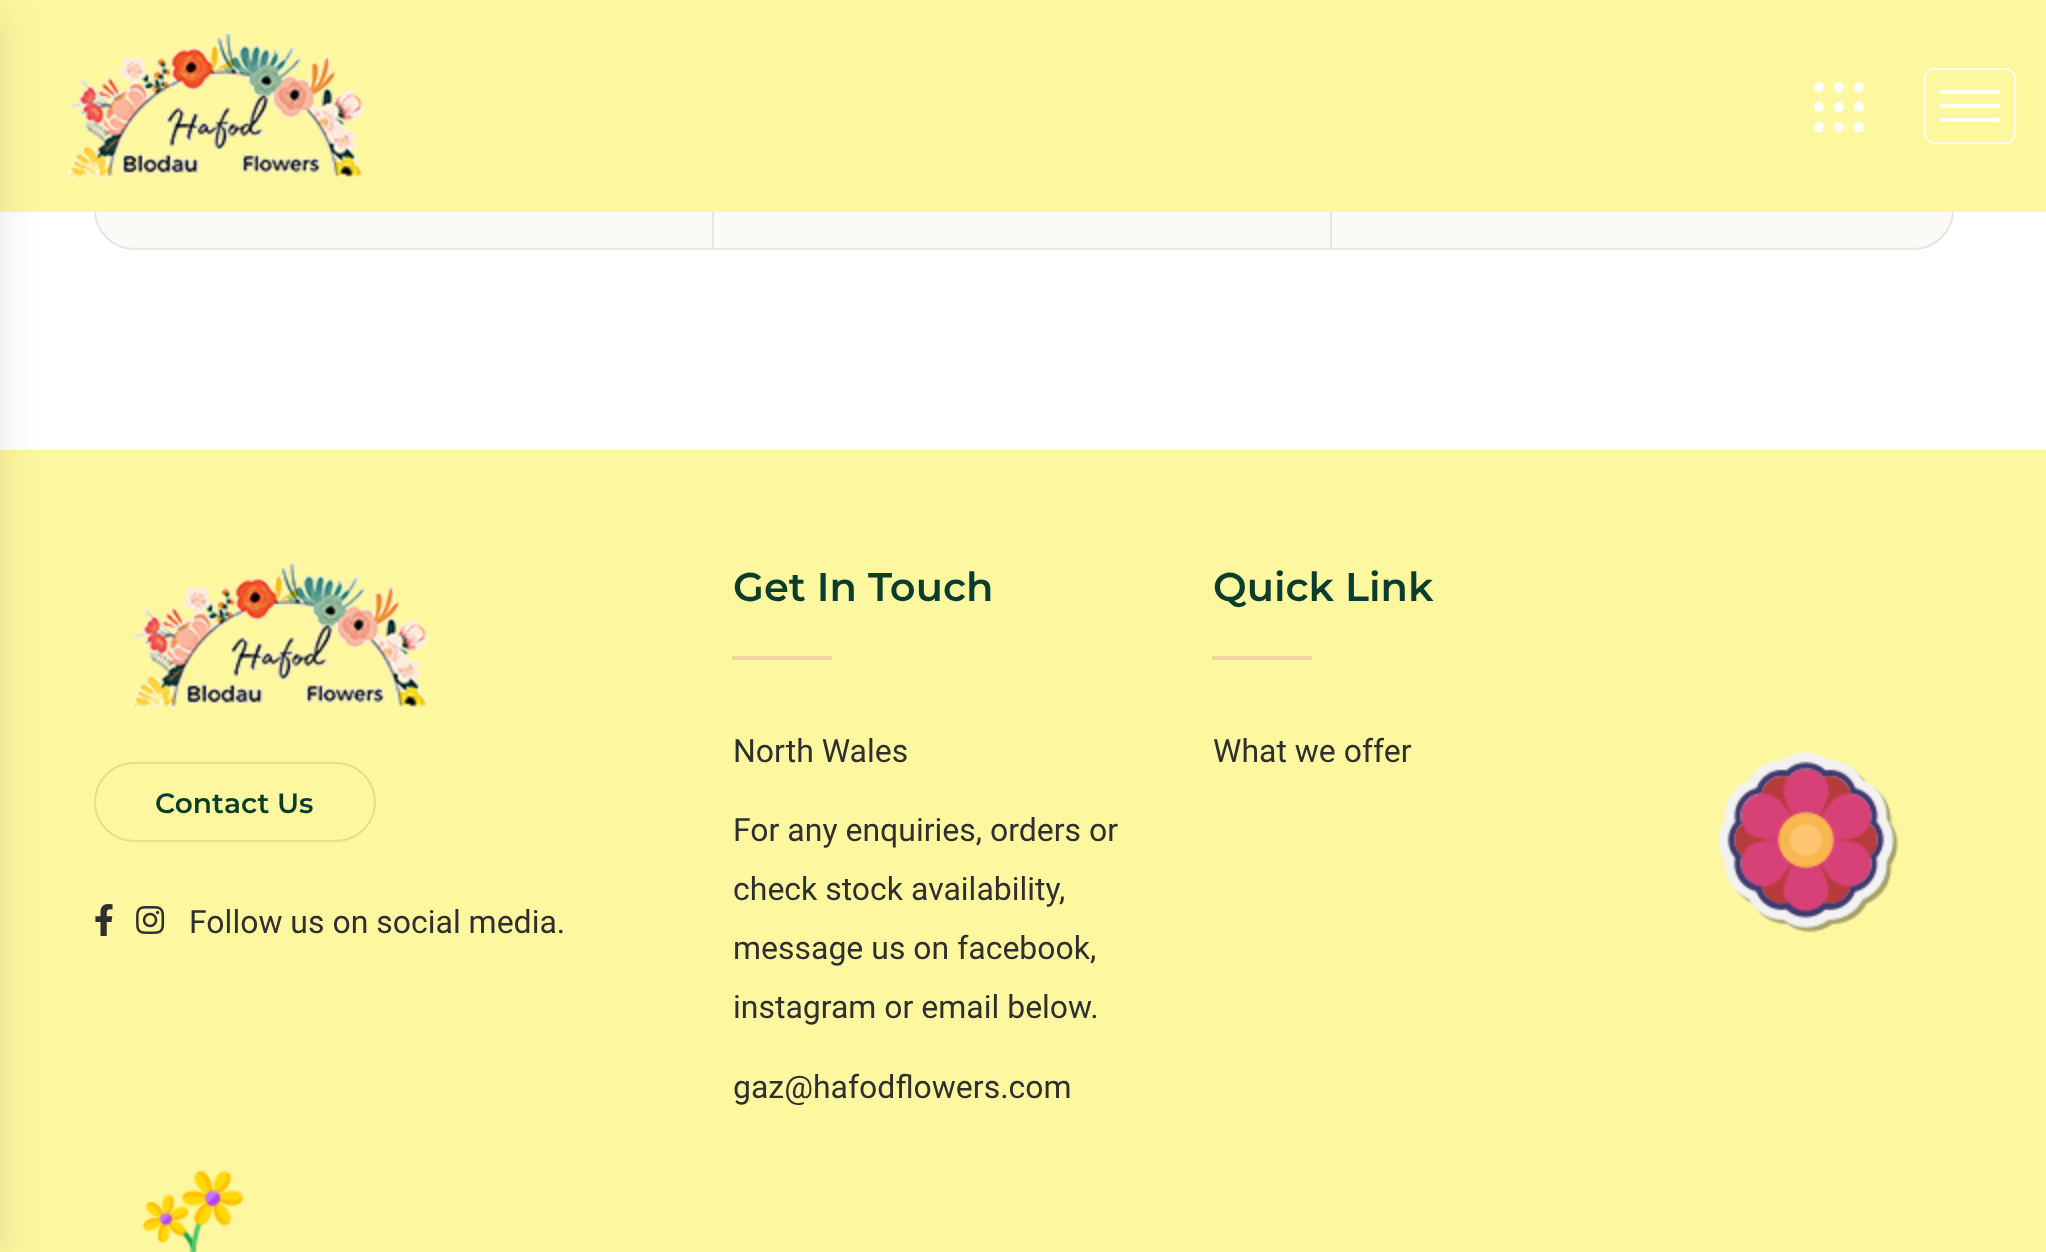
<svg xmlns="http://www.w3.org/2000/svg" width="2046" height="1252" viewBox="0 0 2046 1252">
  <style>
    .t1 { font: 600 28px Montserrat; fill: #0b3d2c; }
    .t2 { font: 32px Roboto; fill: #2f2f2f; }
    .t3 { font: 600 40px Montserrat; fill: #0b3d2c; }
  </style>
  <rect width="100%" height="100%" fill="#fff"/>
  <rect x="94" y="-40" width="1860" height="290" rx="40" fill="#fcfaf7"/>
  <rect x="95" y="-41" width="1858" height="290" rx="39" fill="none" stroke="#0b3d2c1a" stroke-width="2"/>
  <rect x="712" y="212" width="2" height="36" fill="#e4e7e3"/>
  <rect x="1330" y="212" width="2" height="36" fill="#e4e7e3"/>
  <rect x="0" y="0" width="2046" height="212" fill="#fdf7a0"/>
  <rect x="0" y="450" width="2046" height="802" fill="#fdf7a0"/>
  <rect x="-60" y="10" width="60" height="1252" fill="#0000001a" filter="blur(20px)"/>
  <image x="67" y="31" width="298" height="148" href="images/1.png"/>
  <image x="1814" y="82" width="50" height="50" href="images/2.png"/>
  <rect x="1925" y="69" width="90" height="74" rx="9" fill="none" stroke="#fffdec" stroke-width="2"/>
  <rect x="1940" y="90" width="60" height="4" rx="2" fill="#fff"/>
  <rect x="1940" y="104" width="60" height="4" rx="2" fill="#fff"/>
  <rect x="1940" y="118" width="60" height="4" rx="2" fill="#fff"/>
  <image x="131" y="561" width="298" height="148" href="images/1.png"/>
  <rect x="95" y="763" width="280" height="78" rx="39" fill="none" stroke="#e4de90" stroke-width="2"/>
  <text x="155" y="813" class="t1">Contact Us</text>
  <image x="95" y="904" width="18" height="32" href="images/3.png"/>
  <image x="136" y="906" width="29" height="28" href="images/4.png"/>
  <text x="189" y="933" class="t2">Follow us on social media.</text>
  <text x="733" y="601" class="t3">Get In Touch</text>
  <rect x="732" y="656" width="100" height="4" fill="#f1d2a9"/>
  <text x="733" y="762" class="t2">North Wales</text>
  <text x="733" y="841" class="t2">For any enquiries, orders or</text>
  <text x="733" y="900" class="t2">check stock availability,</text>
  <text x="733" y="959" class="t2">message us on facebook,</text>
  <text x="733" y="1018" class="t2">instagram or email below.</text>
  <text x="733" y="1098" class="t2">gaz@hafodflowers.com</text>
  <text x="1213" y="601" class="t3">Quick Link</text>
  <rect x="1212" y="656" width="100" height="4" fill="#f1d2a9"/>
  <text x="1213" y="762" class="t2">What we offer</text>
  <image x="1717" y="751" width="182" height="182" href="images/5.png"/>
  <image x="141" y="1169" width="104" height="83" href="images/6.png"/>
</svg>
